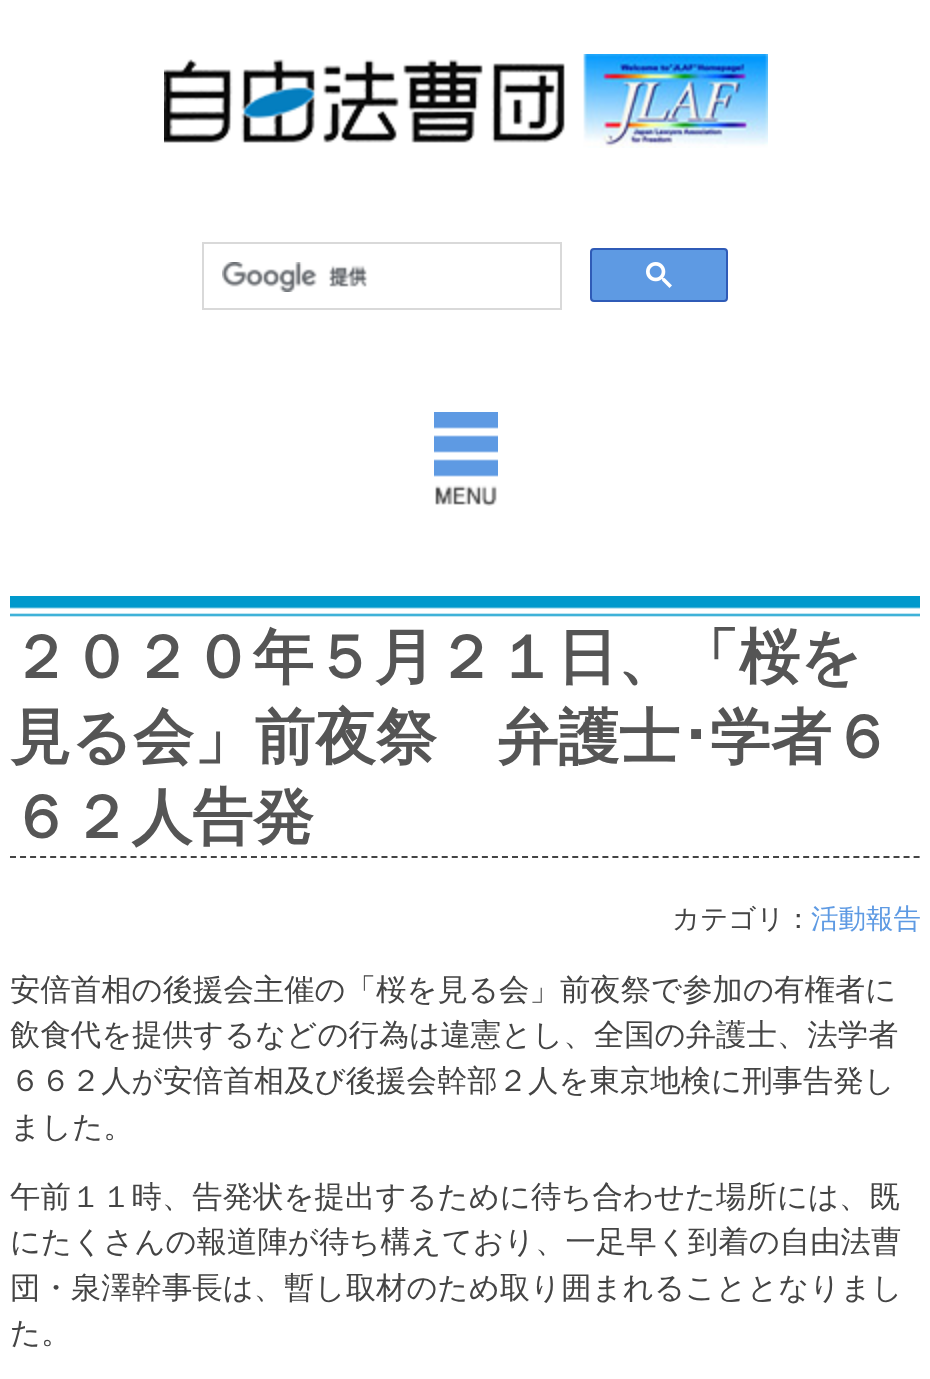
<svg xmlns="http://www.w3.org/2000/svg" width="930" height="1379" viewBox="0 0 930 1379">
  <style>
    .t1 { font: bold 60.75px WenQuanYi Zen Hei; fill: #555; }
    .t2 { font: bold 60.75px IPAPGothic; fill: #555; }
    .t3 { font: 500 27.5px WenQuanYi Zen Hei; fill: #444; }
    .t4 { font: 500 27.5px WenQuanYi Zen Hei; fill: #5e9ae3; }
    .t5 { font: 500 30.4px WenQuanYi Zen Hei; fill: #444; }
  </style>
  <rect width="100%" height="100%" fill="#fff"/>
  <image x="164" y="54" width="604" height="94" href="images/1.png"/>
  <rect x="203" y="243" width="358" height="66" fill="none" stroke="#d9d9d9" stroke-width="2"/>
  <image x="222" y="262" width="146" height="30" href="images/2.png"/>
  <rect x="591" y="249" width="136" height="52" rx="3" fill="#5e9ae3" stroke="#2f5bb7" stroke-width="2"/>
  <image x="646" y="262" width="26" height="26" href="images/3.png"/>
  <image x="434" y="412" width="64" height="94" href="images/4.png"/>
  <image x="10" y="596" width="910" height="21" href="images/5.png"/>
  <path d="M10 857H920" fill="none" stroke="#444" stroke-width="2" stroke-dasharray="6 4.04"/>
  <text x="10" y="678" class="t1">２０２０年５月２１日、「桜を</text>
  <text x="10" y="758" class="t1">見る会」前夜祭　弁護士</text>
  <text x="680" y="758" class="t2">･</text>
  <text x="710" y="758" class="t1">学者６</text>
  <text x="10" y="838" class="t1">６２人告発</text>
  <text x="672" y="928" class="t3">カテゴリ：</text>
  <text x="811" y="928" class="t4">活動報告</text>
  <text x="10" y="1000" class="t5">安倍首相の後援会主催の「桜を見る会」前夜祭で参加の有権者に</text>
  <text x="10" y="1045" class="t5">飲食代を提供するなどの行為は違憲とし、全国の弁護士、法学者</text>
  <text x="10" y="1091" class="t5">６６２人が安倍首相及び後援会幹部２人を東京地検に刑事告発し</text>
  <text x="10" y="1137" class="t5">ました。</text>
  <text x="10" y="1207" class="t5">午前１１時、告発状を提出するために待ち合わせた場所には、既</text>
  <text x="10" y="1252" class="t5">にたくさんの報道陣が待ち構えており、一足早く到着の自由法曹</text>
  <text x="10" y="1298" class="t5">団・泉澤幹事長は、暫し取材のため取り囲まれることとなりまし</text>
  <text x="10" y="1343" class="t5">た。</text>
</svg>
